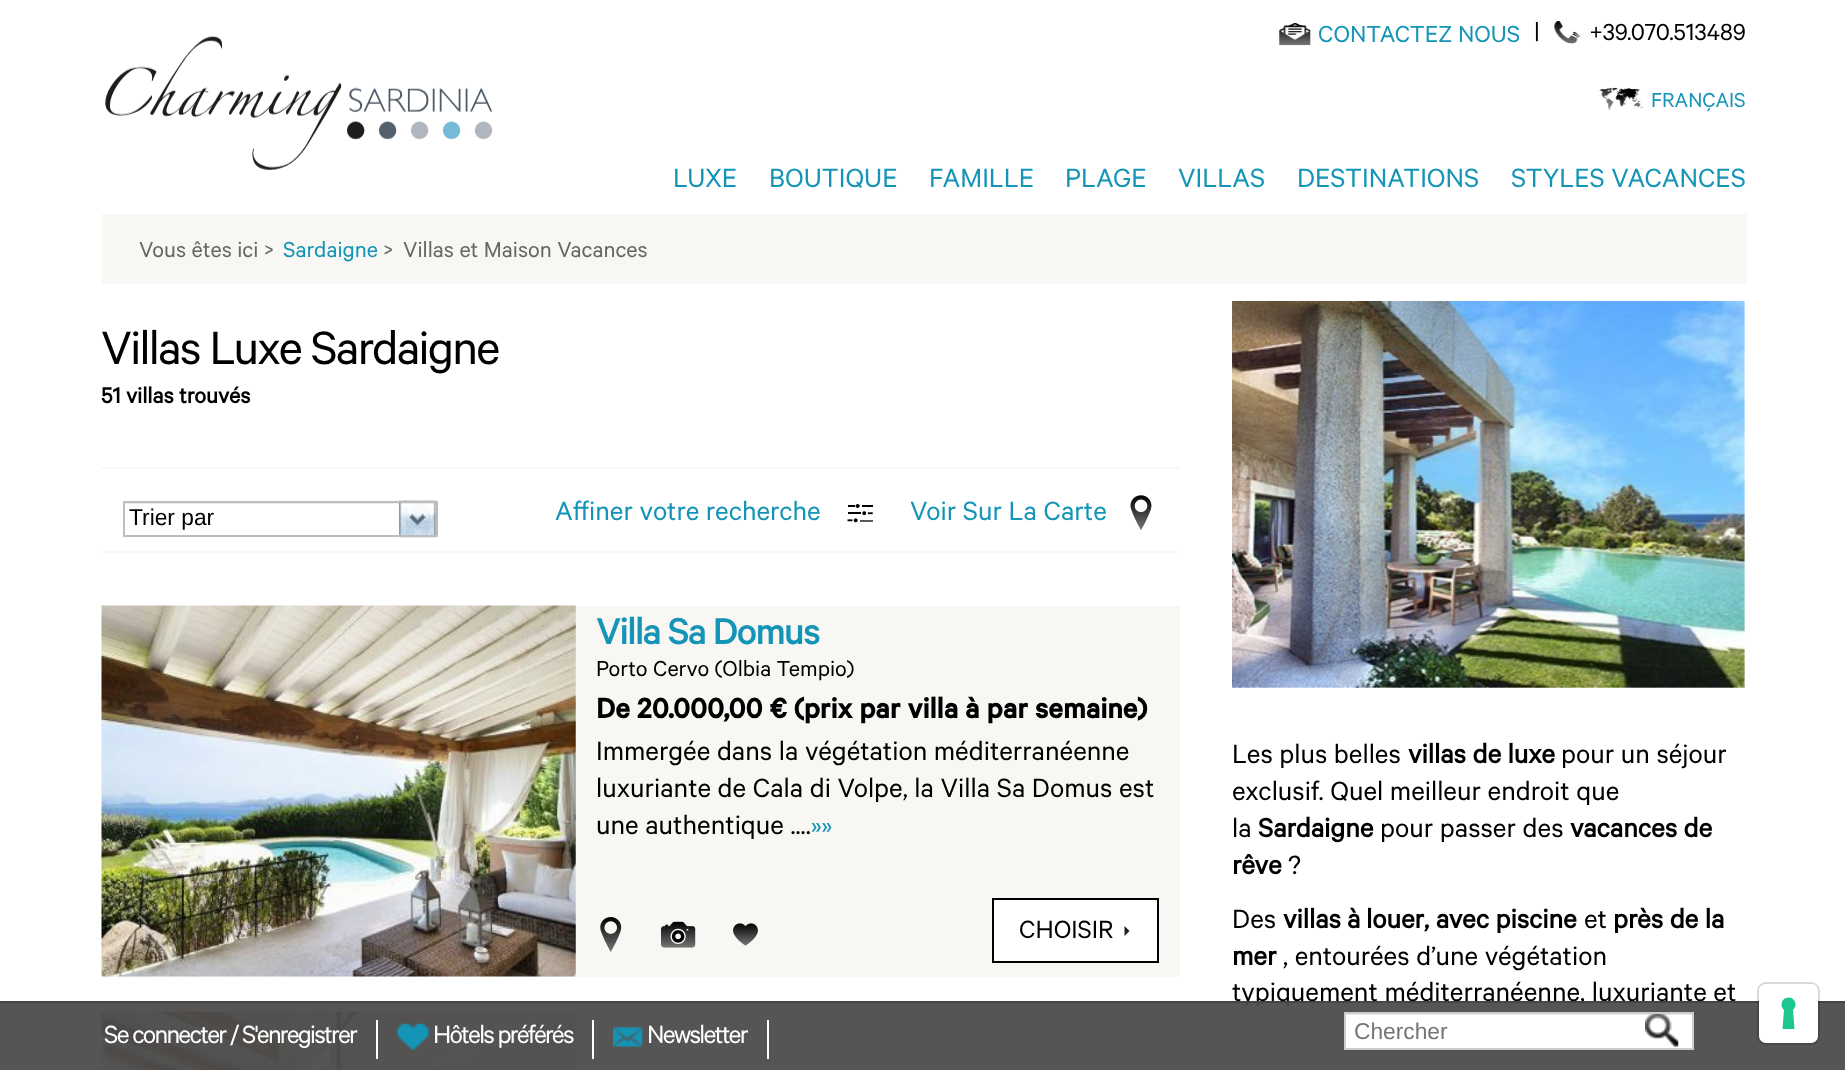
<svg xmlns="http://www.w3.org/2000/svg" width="1845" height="1070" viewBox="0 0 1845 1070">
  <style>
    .t1 { font: 26.25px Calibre; fill: #1495b7; }
    .t2 { font: 26.25px Calibre; fill: #000; }
    .t3 { font: 22.75px Calibre; fill: #1495b7; }
    .t4 { font: 29.75px Calibre; fill: #1495b7; }
    .t5 { font: 24.5px Calibre; fill: #666; }
    .t6 { font: 24.5px Calibre; fill: #1495b7; }
    .t7 { font: 52.5px Calibre; letter-spacing: -1.75px; fill: #000; }
    .t8 { font: bold 24.5px Calibre; fill: #000; }
    .t9 { font: 22.75px Liberation Sans; fill: #000; }
    .t10 { font: 500 42px Calibre; letter-spacing: -1.75px; fill: #1495b7; }
    .t11 { font: 24.5px Calibre; fill: #000; }
    .t12 { font: bold 31.5px 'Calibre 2'; fill: #000; }
    .t13 { font: 29.75px Calibre; fill: #000; }
    .t14 { font: 28px Calibre; fill: #000; }
    .t15 { font: bold 29.75px Calibre; fill: #000; }
    .t16 { font: 28px Calibre; letter-spacing: -1.75px; fill: #fff; }
    .t17 { font: 22.75px Liberation Sans; fill: #757575; }
  </style>
  <defs>
    <clipPath id="clip1"><rect x="1355" y="1019" width="334" height="26"/></clipPath>
  </defs>
  <rect width="100%" height="100%" fill="#fff"/>
  <image x="105" y="36" width="388" height="134" href="images/1.png"/>
  <image x="1279" y="23" width="32" height="23" href="images/2.png"/>
  <text x="1318" y="42" class="t1">CONTACTEZ NOUS</text>
  <text x="1534" y="39" class="t2">|</text>
  <image x="1554" y="21" width="27" height="23" href="images/3.png"/>
  <text x="1589" y="40" class="t2">+39.070.513489</text>
  <image x="1599" y="87" width="45" height="23" href="images/4.png"/>
  <text x="1651" y="107" class="t3">FRANÇAIS</text>
  <text x="673" y="187" class="t4">LUXE</text>
  <text x="769" y="187" class="t4">BOUTIQUE</text>
  <text x="929" y="187" class="t4">FAMILLE</text>
  <text x="1065" y="187" class="t4">PLAGE</text>
  <text x="1178" y="187" class="t4">VILLAS</text>
  <text x="1297" y="187" class="t4">DESTINATIONS</text>
  <text x="1511" y="187" class="t4">STYLES VACANCES</text>
  <rect x="102" y="214" width="1645" height="70" fill="#f8f7f3"/>
  <text x="139" y="257" class="t5">Vous êtes ici &gt;</text>
  <text x="283" y="257" class="t6">Sardaigne</text>
  <text x="383" y="257" class="t5">&gt;</text>
  <text x="403" y="257" class="t5">Villas et Maison Vacances</text>
  <text x="101" y="364" class="t7">Villas Luxe Sardaigne</text>
  <text x="101" y="403" class="t8">51 villas trouvés</text>
  <rect x="102" y="467" width="1078" height="2" fill="#f8f7f3"/>
  <rect x="102" y="551" width="1078" height="2" fill="#f8f7f3"/>
  <image x="399" y="500" width="37" height="38" href="images/5.png"/>
  <rect x="124" y="503" width="312" height="1" fill="#00000012"/>
  <rect x="124" y="502" width="313" height="34" fill="none" stroke="#bdbdbd" stroke-width="2"/>
  <text x="129" y="525" class="t9">Trier par</text>
  <text x="555" y="520" class="t4">Affiner votre recherche</text>
  <image x="847" y="504" width="26" height="19" href="images/6.png"/>
  <text x="910" y="520" class="t4">Voir Sur La Carte</text>
  <image x="1130" y="495" width="22" height="35" href="images/7.png"/>
  <rect x="102" y="606" width="1078" height="371" fill="#f8f7f3"/>
  <image x="101" y="605" width="475" height="372" href="images/8.png"/>
  <text x="596" y="644" class="t10">Villa Sa Domus</text>
  <text x="596" y="676" class="t11">Porto Cervo (Olbia Tempio)</text>
  <text x="596" y="718" class="t12">De 20.000,00 € (prix par villa à par semaine)</text>
  <text x="596" y="760" class="t13">Immergée dans la végétation méditerranéenne</text>
  <text x="596" y="797" class="t13">luxuriante de Cala di Volpe, la Villa Sa Domus est</text>
  <text x="596" y="834" class="t13">une authentique ....</text>
  <text x="811" y="834" class="t4">»»</text>
  <image x="600" y="917" width="22" height="35" href="images/9.png"/>
  <image x="661" y="921" width="35" height="27" href="images/10.png"/>
  <image x="733" y="923" width="25" height="23" href="images/11.png"/>
  <rect x="993" y="899" width="165" height="63" fill="#fff" stroke="#000" stroke-width="2"/>
  <text x="1019" y="938" class="t14">CHOISIR</text>
  <path d="M1124.5 936V926L1129.5 931Z" fill="#1d1d1b"/>
  <rect x="575" y="1012" width="605" height="58" fill="#f8f7f3"/>
  <image x="101" y="1011" width="475" height="59" href="images/12.png"/>
  <image x="1232" y="687" width="1" height="1" href="images/14.png"/>
  <image x="1232" y="301" width="513" height="387" href="images/13.png"/>
  <text x="1232" y="763" class="t13">Les plus belles</text>
  <text x="1408" y="763" class="t15">villas de luxe</text>
  <text x="1561" y="763" class="t13">pour un séjour</text>
  <text x="1232" y="800" class="t13">exclusif. Quel meilleur endroit que</text>
  <text x="1232" y="837" class="t13">la</text>
  <text x="1258" y="837" class="t15">Sardaigne</text>
  <text x="1380" y="837" class="t13">pour passer des</text>
  <text x="1570" y="837" class="t15">vacances de</text>
  <text x="1232" y="874" class="t15">rêve</text>
  <text x="1288" y="874" class="t13">?</text>
  <text x="1232" y="928" class="t13">Des</text>
  <text x="1283" y="928" class="t15">villas</text>
  <text x="1347" y="928" word-spacing="-1" class="t15">à louer</text>
  <text x="1424" y="928" class="t15">, avec piscine</text>
  <text x="1584" y="928" class="t13">et</text>
  <text x="1613" y="928" class="t15">près de la</text>
  <text x="1232" y="965" class="t15">mer</text>
  <text x="1283" y="965" class="t13">, entourées d’une végétation</text>
  <text x="1232" y="1001" class="t13">typiquement méditerranéenne, luxuriante et</text>
  <rect x="0" y="1003" width="1845" height="67" fill="#4c4c4cf2"/>
  <rect x="0" y="1001" width="1845" height="2" fill="#444"/>
  <rect x="376" y="1020" width="2" height="39" fill="#fff"/>
  <text x="104" y="1043" class="t16">Se connecter / S'enregistrer</text>
  <rect x="592" y="1020" width="2" height="39" fill="#fff"/>
  <image x="396" y="1023" width="33" height="27" href="images/15.png"/>
  <text x="433" y="1043" class="t16">Hôtels préférés</text>
  <rect x="767" y="1020" width="2" height="39" fill="#fff"/>
  <image x="613" y="1027" width="30" height="20" href="images/16.png"/>
  <text x="647" y="1043" class="t16">Newsletter</text>
  <rect x="1346" y="1014" width="346" height="34" fill="#fff"/>
  <image x="1645" y="1014" width="34" height="33" href="images/17.png"/>
  <rect x="1346" y="1014" width="346" height="1" fill="#00000012"/>
  <rect x="1345" y="1013" width="348" height="36" fill="none" stroke="#ccc" stroke-width="2"/>
  <g clip-path="url(#clip1)">
    <text x="1354" y="1039" class="t17">Chercher</text>
  </g>
  <rect x="1758" y="983" width="61" height="61" rx="8" fill="none" stroke="#00000026" stroke-width="2"/>
  <rect x="1759" y="984" width="59" height="59" rx="7" fill="#fff"/>
  <path d="M1788.5 997.5C1795 997.5 1798 1005.5 1793 1010L1794.5 1029H1782.5L1784 1010C1779 1005.5 1782 997.5 1788.5 997.5Z" fill="#1cc691" fill-rule="evenodd"/>
</svg>
